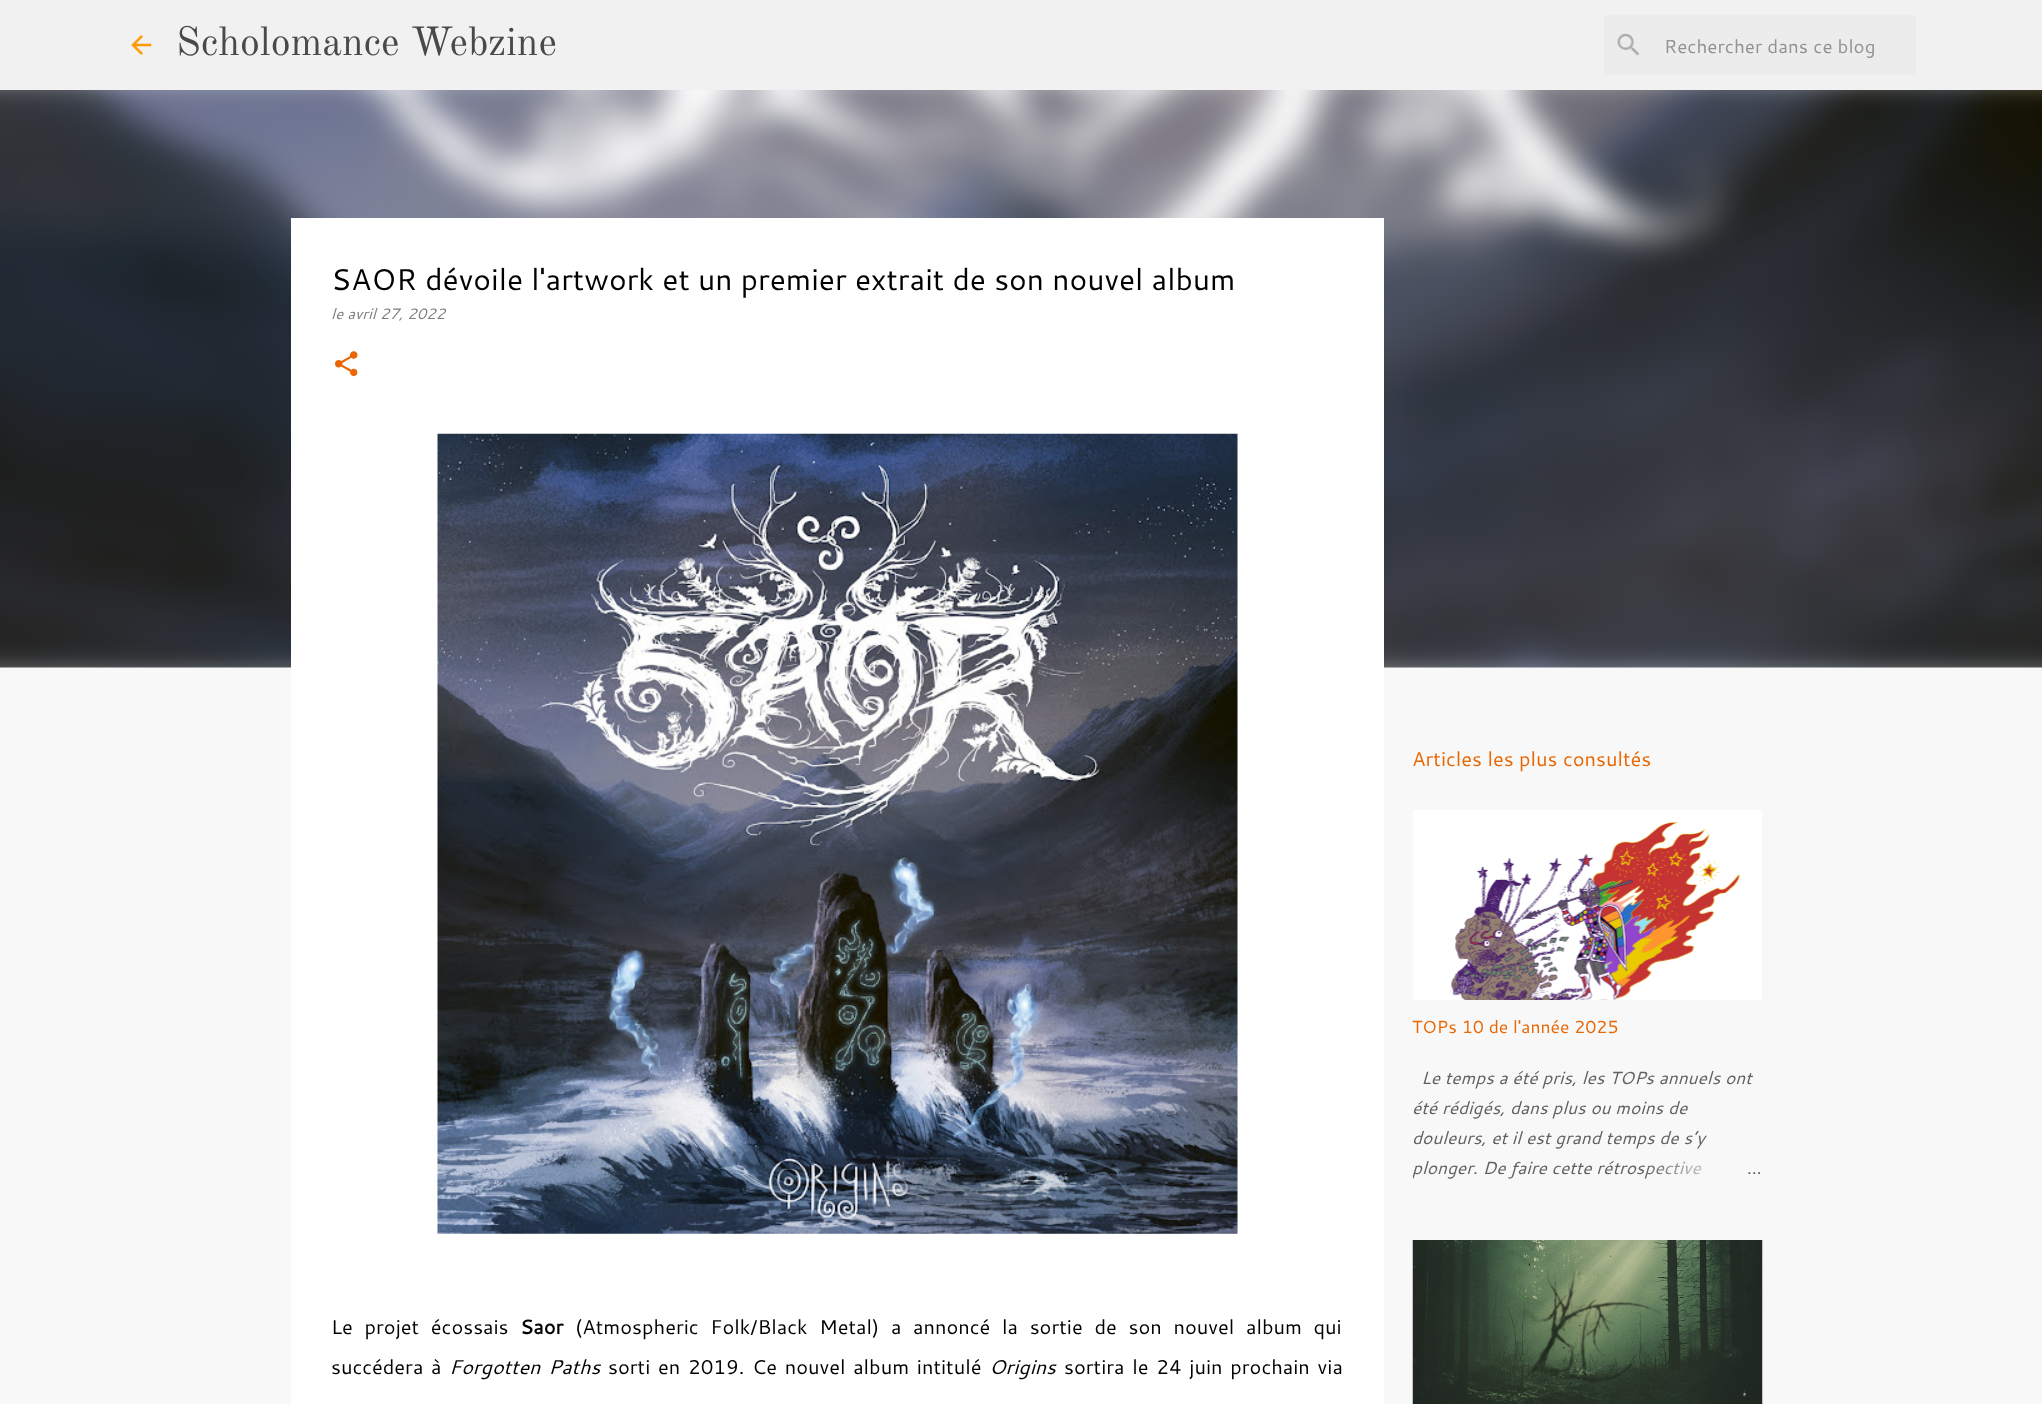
<svg xmlns="http://www.w3.org/2000/svg" width="2042" height="1404" viewBox="0 0 2042 1404">
  <style>
    .t1 { font: 40px Old Standard TT; fill: #494949; }
    .t2 { font: 18.75px Cantarell; fill: #929292; }
    .t3 { font: 30px Cantarell; fill: #000; }
    .t4 { font: italic 15px Cantarell; fill: #7d7d7d; }
    .t5 { font: 20px Cantarell; fill: #000; }
    .t6 { font: bold 20px Cantarell; fill: #000; }
    .t7 { font: italic 20px Cantarell; fill: #000; }
    .t8 { font: 20px Cantarell; fill: #e96603; }
    .t9 { font: 17.5px Cantarell; fill: #e96603; }
    .t10 { font: italic 17.5px Cantarell; fill: #616161; }
    .t11 { font: 17.5px Cantarell; fill: #616161; }
  </style>
  <defs>
    <clipPath id="clip1"><rect x="1413" y="1063" width="350" height="120"/></clipPath>
    <linearGradient id="g1" gradientUnits="userSpaceOnUse" x1="1763" y1="1168" x2="1643" y2="1168"><stop offset="0" stop-color="#f8f8f8"/><stop offset="0.2" stop-color="#f8f8f8"/><stop offset="1" stop-color="#f8f8f8" stop-opacity="0"/></linearGradient>
  </defs>
  <rect width="100%" height="100%" fill="#f8f8f8"/>
  <rect x="0" y="0" width="2042" height="90" fill="#f1f1f1"/>
  <image x="131" y="35" width="21" height="20" href="images/1.png"/>
  <text x="176" y="55" class="t1">Scholomance Webzine</text>
  <rect x="1604" y="15" width="312" height="60" fill="#ececec"/>
  <image x="1617" y="33" width="23" height="23" href="images/2.png"/>
  <text x="1664" y="53" class="t2">Rechercher dans ce blog</text>
  <image x="0" y="90" width="2042" height="578" href="images/7.png"/>
  <rect x="291" y="218" width="1093" height="1186" fill="#fff"/>
  <text x="331" y="290" class="t3">SAOR dévoile l'artwork et un premier extrait de son nouvel album</text>
  <text x="331" y="319" class="t4">le avril 27, 2022</text>
  <image x="335" y="351" width="23" height="26" href="images/3.png"/>
  <image x="437" y="433" width="801" height="801" href="images/4.png"/>
  <text x="331" y="1334" word-spacing="6.25" class="t5">Le projet écossais</text>
  <text x="520" y="1334" class="t6">Saor</text>
  <text x="575" y="1334" word-spacing="6.25" class="t5">(Atmospheric Folk/Black Metal) a annoncé la sortie de son nouvel album qui</text>
  <text x="331" y="1374" word-spacing="2.25" class="t5">succédera à</text>
  <text x="449" y="1374" word-spacing="2.25" class="t7">Forgotten Paths</text>
  <text x="608" y="1374" word-spacing="2.25" class="t5">sorti en 2019. Ce nouvel album intitulé</text>
  <text x="989" y="1374" class="t7">Origins</text>
  <text x="1064" y="1374" word-spacing="2.25" class="t5">sortira le 24 juin prochain via</text>
  <text x="1412" y="766" class="t8">Articles les plus consultés</text>
  <image x="1413" y="810" width="349" height="190" href="images/5.png"/>
  <text x="1412" y="1033" class="t9">TOPs 10 de l'année 2025</text>
  <text x="1421" y="1084" class="t10">Le temps a été pris, les TOPs annuels ont</text>
  <text x="1412" y="1114" class="t10">été rédigés, dans plus ou moins de</text>
  <text x="1412" y="1144" class="t10">douleurs, et il est grand temps de s’y</text>
  <g clip-path="url(#clip1)">
    <text x="1412" y="1174" class="t10">plonger. De faire cette rétrospective</text>
  </g>
  <rect x="1645" y="1161" width="57" height="17" fill="url(#g1)"/>
  <text x="1747" y="1174" class="t11">…</text>
  <image x="1412" y="1240" width="351" height="164" href="images/6.png"/>
</svg>
